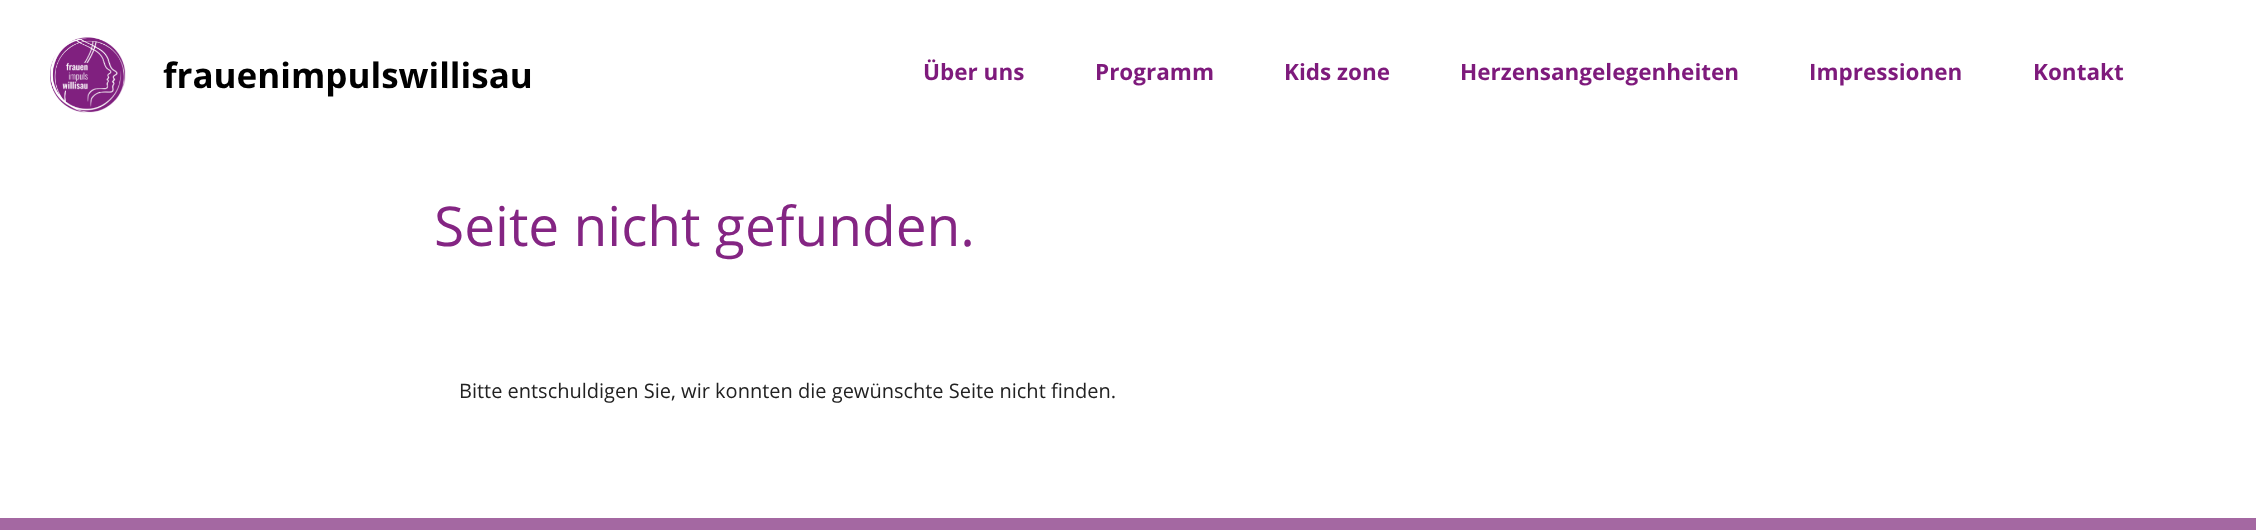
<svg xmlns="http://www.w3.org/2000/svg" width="2256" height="530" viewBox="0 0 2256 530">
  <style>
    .t1 { font: bold 35px Open Sans; fill: #000; }
    .t2 { font: bold 22.5px Open Sans; fill: #7e1a7c; }
    .t3 { font: 55px Open Sans; fill: #842583; }
    .t4 { font: 20px Open Sans; fill: #222; }
  </style>
  <rect width="100%" height="100%" fill="#fff"/>
  <image x="50" y="37" width="76" height="76" href="images/1.png"/>
  <text x="163" y="88" class="t1">frauenimpulswillisau</text>
  <text x="923" y="80" class="t2">Über uns</text>
  <text x="1095" y="80" class="t2">Programm</text>
  <text x="1284" y="80" class="t2">Kids zone</text>
  <text x="1460" y="80" class="t2">Herzensangelegenheiten</text>
  <text x="1809" y="80" class="t2">Impressionen</text>
  <text x="2033" y="80" class="t2">Kontakt</text>
  <text x="434" y="246" class="t3">Seite nicht gefunden.</text>
  <text x="459" y="398" class="t4">Bitte entschuldigen Sie, wir konnten die gewünschte Seite nicht finden.</text>
  <rect x="0" y="518" width="2256" height="12" fill="#a468a2"/>
</svg>
